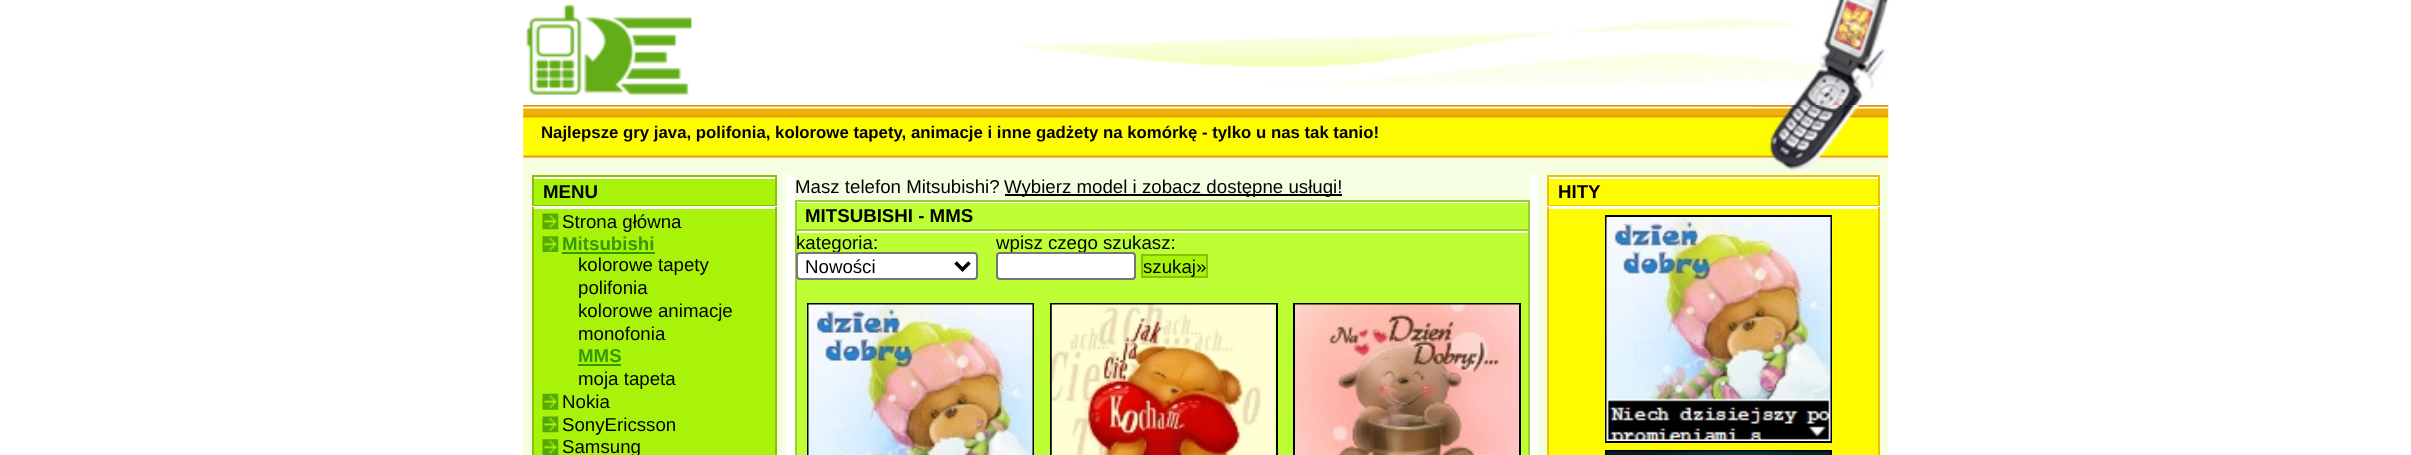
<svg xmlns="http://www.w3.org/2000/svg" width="2411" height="455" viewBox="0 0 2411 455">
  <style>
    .t1 { font: bold 16.8px Liberation Sans; fill: #000; }
    .t2 { font: bold 18.7px Liberation Sans; fill: #000; }
    .t3 { font: 18.7px Liberation Sans; fill: #000; }
    .t4 { font: bold 18.7px Liberation Sans; fill: #369801; }
  </style>
  <rect width="100%" height="100%" fill="#fff"/>
  <image x="526" y="4" width="166" height="91" href="images/1.png"/>
  <image x="1019" y="0" width="870" height="105" href="images/2.png"/>
  <image x="523" y="105" width="1234" height="70" href="images/3.png"/>
  <text x="541" y="138" class="t1">Najlepsze gry java, polifonia, kolorowe tapety, animacje i inne gadżety na komórkę - tylko u nas tak tanio!</text>
  <image x="1757" y="105" width="132" height="70" href="images/4.png"/>
  <rect x="523" y="175" width="263" height="280" fill="#f5fee1"/>
  <rect x="534" y="179" width="241" height="26" fill="#a9f30a"/>
  <rect x="532" y="177" width="245" height="2" fill="#fff"/>
  <rect x="533" y="176" width="243" height="30" fill="none" stroke="#86c302" stroke-width="2"/>
  <text x="543" y="198" class="t2">MENU</text>
  <rect x="534" y="209" width="241" height="246" fill="#a9f30a"/>
  <rect x="532" y="206" width="245" height="3" fill="#fff"/>
  <rect x="775" y="207" width="2" height="248" fill="#86c302"/>
  <rect x="532" y="207" width="2" height="248" fill="#86c302"/>
  <image x="542" y="213" width="17" height="17" href="images/5.png"/>
  <text x="562" y="228" class="t3">Strona główna</text>
  <image x="542" y="236" width="17" height="16" href="images/6.png"/>
  <text x="562" y="250" class="t4">Mitsubishi</text>
  <rect x="562" y="252" width="93" height="2" fill="#369801"/>
  <text x="578" y="271" class="t3">kolorowe tapety</text>
  <text x="578" y="294" class="t3">polifonia</text>
  <text x="578" y="317" class="t3">kolorowe animacje</text>
  <text x="578" y="340" class="t3">monofonia</text>
  <text x="578" y="362" class="t4">MMS</text>
  <rect x="578" y="364" width="43" height="2" fill="#369801"/>
  <text x="578" y="385" class="t3">moja tapeta</text>
  <rect x="543" y="409" width="15" height="1" fill="#86c302"/>
  <image x="542" y="393" width="17" height="17" href="images/7.png"/>
  <text x="562" y="408" class="t3">Nokia</text>
  <image x="542" y="416" width="17" height="17" href="images/8.png"/>
  <text x="562" y="431" class="t3">SonyEricsson</text>
  <image x="542" y="439" width="17" height="16" href="images/6.png"/>
  <text x="562" y="453" class="t3">Samsung</text>
  <rect x="795" y="175" width="735" height="25" fill="#f5fee1"/>
  <text x="795" y="193" class="t3">Masz telefon Mitsubishi?</text>
  <rect x="1005" y="194" width="337" height="2" fill="#000"/>
  <text x="1004" y="193" class="t3">Wybierz model i zobacz dostępne usługi!</text>
  <rect x="797" y="203" width="731" height="26" fill="#befe34"/>
  <image x="797" y="202" width="731" height="1" href="images/9.png"/>
  <rect x="796" y="201" width="733" height="29" fill="none" stroke="#9bcf2b" stroke-width="2"/>
  <text x="805" y="222" class="t2">MITSUBISHI - MMS</text>
  <rect x="797" y="232" width="731" height="223" fill="#befe34"/>
  <image x="797" y="231" width="731" height="2" href="images/10.png"/>
  <rect x="1528" y="231" width="2" height="224" fill="#9bcf2b"/>
  <rect x="795" y="231" width="2" height="224" fill="#9bcf2b"/>
  <text x="796" y="249" class="t3">kategoria:</text>
  <rect x="797" y="253" width="180" height="26" rx="3" fill="#fff" stroke="#767676" stroke-width="2"/>
  <path d="M955.5 262.5L962.5 269.5L969.5 262.5" fill="none" stroke="#000" stroke-width="3.5"/>
  <text x="805" y="273" class="t3">Nowości</text>
  <text x="996" y="249" class="t3">wpisz czego szukasz:</text>
  <rect x="997" y="253" width="138" height="26" rx="3" fill="#fff" stroke="#767676" stroke-width="2"/>
  <rect x="1142" y="255" width="65" height="22" fill="#a9f30a" stroke="#86c302" stroke-width="2"/>
  <text x="1143" y="273" class="t3">szukaj»</text>
  <rect x="808" y="304" width="225" height="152" fill="none" stroke="#000" stroke-width="2"/>
  <image x="808" y="304" width="225" height="151" href="images/11.png"/>
  <rect x="1051" y="304" width="226" height="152" fill="none" stroke="#000" stroke-width="2"/>
  <image x="1051" y="304" width="225" height="151" href="images/12.png"/>
  <rect x="1294" y="304" width="226" height="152" fill="none" stroke="#000" stroke-width="2"/>
  <image x="1295" y="304" width="224" height="151" href="images/13.png"/>
  <rect x="1538" y="175" width="350" height="280" fill="#f5fee1"/>
  <rect x="1549" y="179" width="329" height="26" fill="#fffc00"/>
  <rect x="1547" y="177" width="333" height="2" fill="#fff"/>
  <rect x="1548" y="176" width="331" height="30" fill="none" stroke="#edc300" stroke-width="2"/>
  <text x="1558" y="198" class="t2">HITY</text>
  <rect x="1549" y="209" width="329" height="246" fill="#fffc00"/>
  <rect x="1547" y="206" width="333" height="3" fill="#fff"/>
  <rect x="1878" y="207" width="2" height="248" fill="#edc300"/>
  <rect x="1547" y="207" width="2" height="248" fill="#edc300"/>
  <rect x="1606" y="216" width="225" height="226" fill="none" stroke="#000" stroke-width="2"/>
  <image x="1606" y="217" width="225" height="224" href="images/14.png"/>
  <rect x="1606" y="451" width="225" height="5" fill="none" stroke="#000" stroke-width="2"/>
  <image x="1606" y="451" width="225" height="4" href="images/15.png"/>
</svg>
